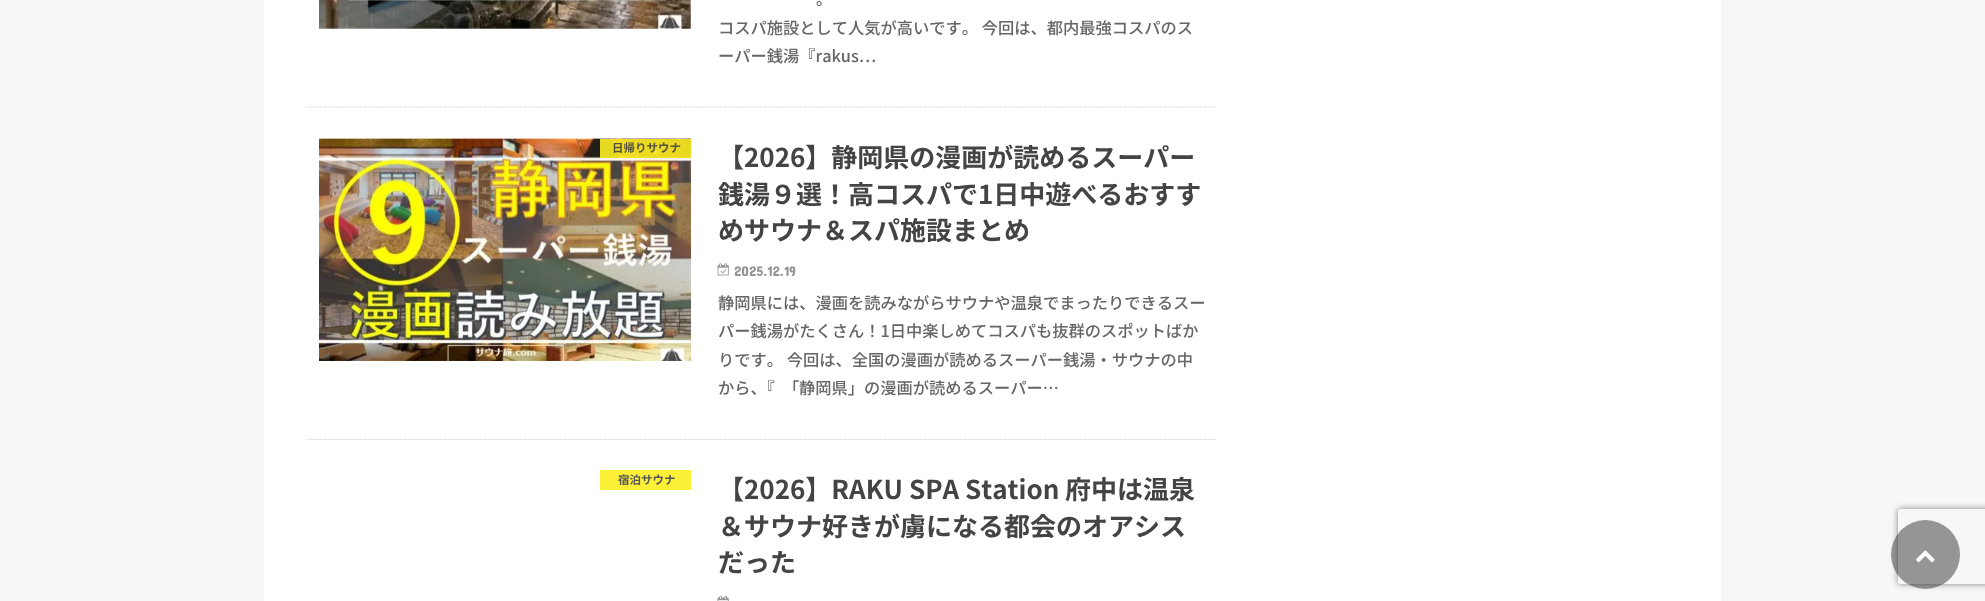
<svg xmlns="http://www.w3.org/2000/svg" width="1985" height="601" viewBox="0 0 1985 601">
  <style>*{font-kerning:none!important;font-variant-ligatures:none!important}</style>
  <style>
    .t1 { font: 500 16.25px Noto Sans JP; fill: #666; }
    .t2 { font: bold 11.5px Noto Sans JP; fill: #555340; }
    .t3 { font: bold 26px Noto Sans JP; fill: #444; }
    .t4 { font: 14px Concert One; fill: #949494; }
    .t5 { font: bold 11.5px Noto Sans JP; fill: #575757; }
  </style>
  <defs>
    <clipPath id="clip1"><path d="M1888 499H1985V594H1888ZM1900.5 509H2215.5C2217 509 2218 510 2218 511.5V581.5C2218 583 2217 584 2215.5 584H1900.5C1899 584 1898 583 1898 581.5V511.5C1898 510 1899 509 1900.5 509Z" clip-rule="evenodd"/></clipPath>
  </defs>
  <rect width="100%" height="100%" fill="#f7f7f7"/>
  <rect x="264" y="-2" width="1457" height="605" fill="#ddd" filter="blur(0.5px)"/>
  <rect x="264" y="0" width="1457" height="601" fill="#fff"/>
  <path d="M307.5 107H1217.5" fill="none" stroke="#ccc" stroke-width="1.2" stroke-dasharray="1.25 1.25"/>
  <image x="319" y="0" width="372" height="29" href="images/1.png"/>
  <text x="816" y="5" class="t1">。</text>
  <text x="718" y="34" class="t1">コスパ施設として人気が高いです。 今回は、都内最強コスパのス</text>
  <text x="718" y="62" class="t1">ーパー銭湯『rakus…</text>
  <path d="M307.5 439.5H1217.5" fill="none" stroke="#ccc" stroke-width="1.2" stroke-dasharray="1.25 1.25"/>
  <image x="319" y="138" width="372" height="223" href="images/2.png"/>
  <rect x="600" y="139" width="91" height="19" fill="#fcee21e6"/>
  <text x="612" y="152" class="t2">日帰りサウナ</text>
  <text x="718" y="167" class="t3">【2026】静岡県の漫画が読めるスーパー</text>
  <text x="718" y="204" class="t3">銭湯９選！高コスパで1日中遊べるおすす</text>
  <text x="718" y="240" class="t3">めサウナ＆スパ施設まとめ</text>
  <image x="717" y="263" width="12" height="13" href="images/3.png"/>
  <text x="734" y="276" class="t4">2025.12.19</text>
  <text x="718" y="309" class="t1">静岡県には、漫画を読みながらサウナや温泉でまったりできるスー</text>
  <text x="718" y="337" class="t1">パー銭湯がたくさん！1日中楽しめてコスパも抜群のスポットばか</text>
  <text x="718" y="366" class="t1">りです。 今回は、全国の漫画が読めるスーパー銭湯・サウナの中</text>
  <text x="718" y="394" class="t1">から、『</text>
  <text x="783" y="394" class="t1">「</text>
  <text x="799" y="394" class="t1">静岡県」の漫画が読めるスーパー…</text>
  <rect x="600" y="470" width="91" height="20" fill="#fcf037"/>
  <text x="618" y="484" class="t5">宿泊サウナ</text>
  <text x="718" y="499" class="t3">【2026】RAKU SPA Station</text>
  <text x="1065" y="499" class="t3">府中は温泉</text>
  <text x="718" y="536" class="t3">＆サウナ好きが虜になる都会のオアシス</text>
  <text x="718" y="572" class="t3">だった</text>
  <image x="717" y="595" width="12" height="6" href="images/4.png"/>
  <g clip-path="url(#clip1)">
    <rect x="1898" y="509" width="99" height="75" rx="2.5" fill="#808080" filter="blur(3px)"/>
  </g>
  <circle cx="1925.5" cy="554.5" r="34.5" fill="#33333380"/>
  <image x="1916" y="550" width="19" height="13" href="images/5.png"/>
</svg>
